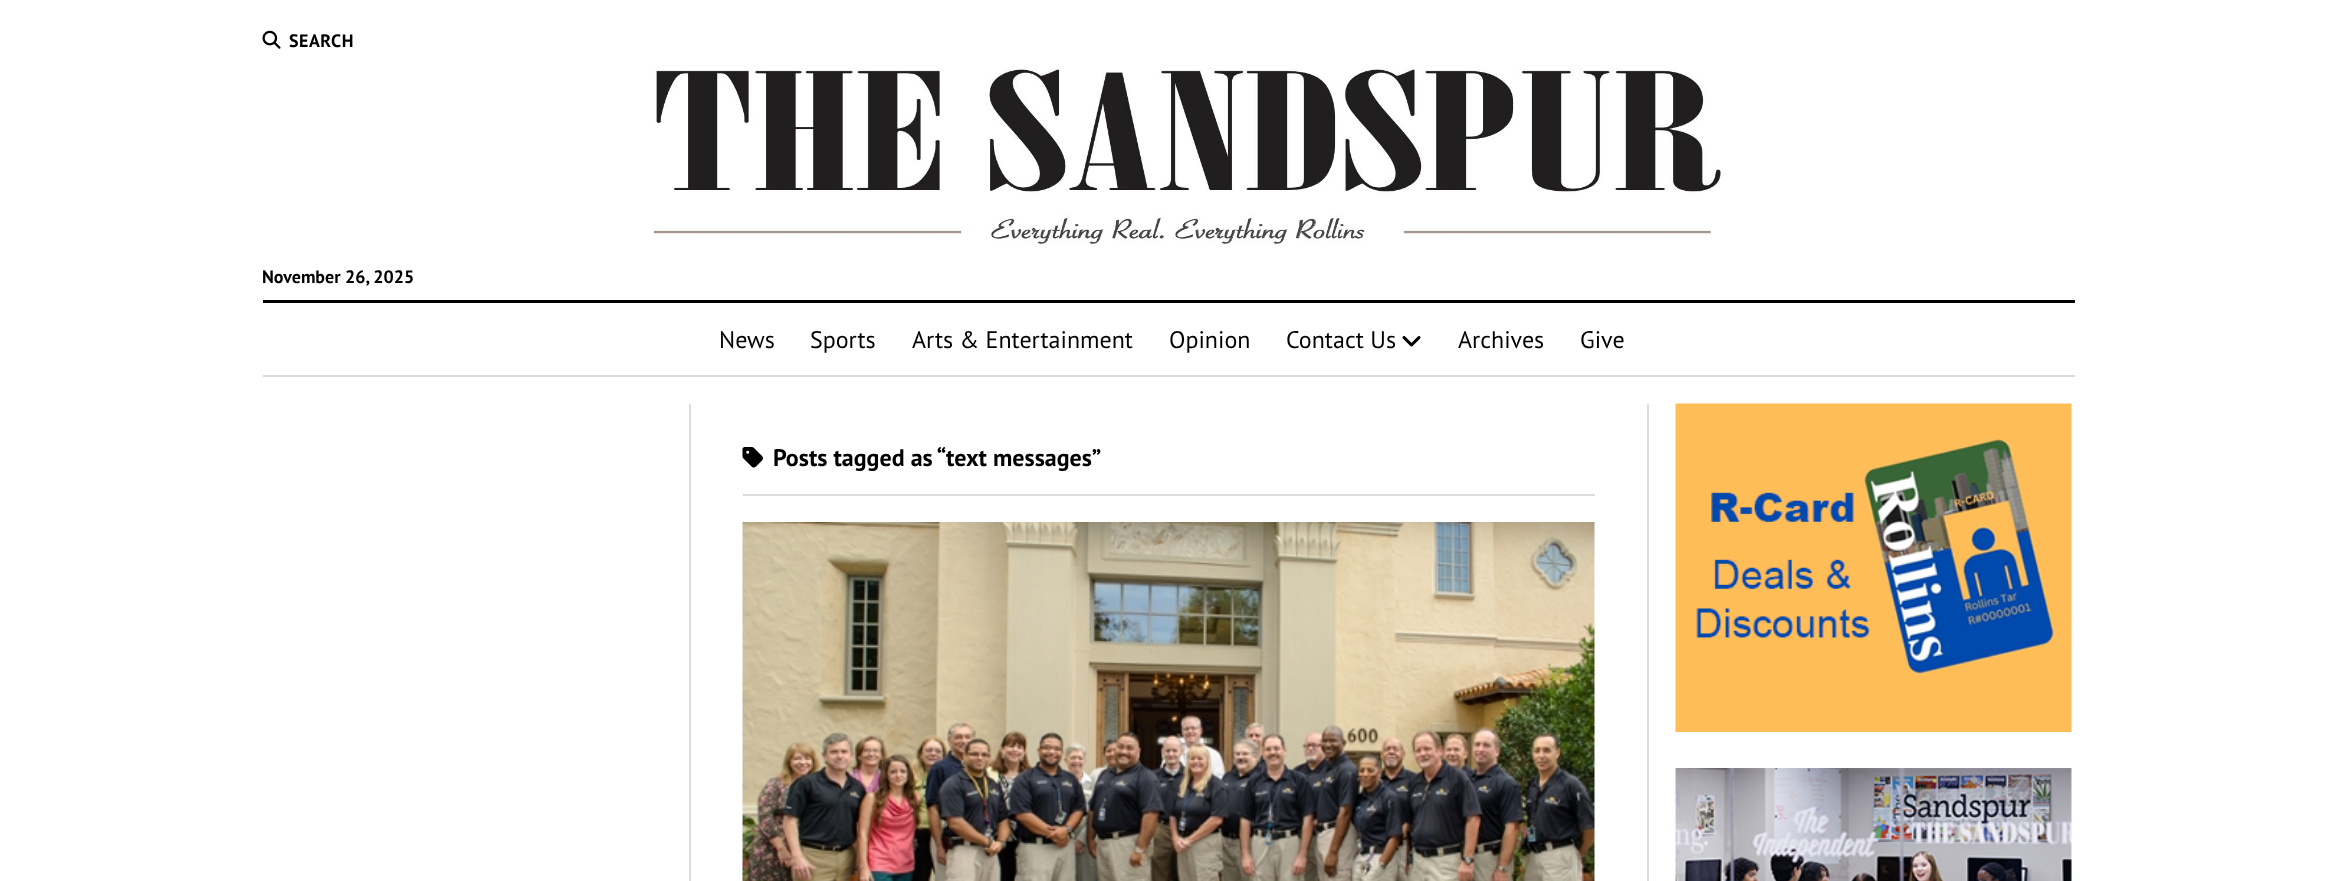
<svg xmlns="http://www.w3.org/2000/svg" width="2337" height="881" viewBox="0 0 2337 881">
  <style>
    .t1 { font: bold 18px PT Sans; letter-spacing: 0.5px; fill: #000; }
    .t2 { font: bold 18px PT Sans; fill: #000; }
    .t3 { font: 24px PT Sans; fill: #000; }
    .t4 { font: bold 24px PT Sans; fill: #000; }
  </style>
  <rect width="100%" height="100%" fill="#fff"/>
  <image x="262" y="30" width="19" height="19" href="images/1.png"/>
  <text x="289" y="47" class="t1">SEARCH</text>
  <image x="653" y="68" width="1068" height="179" href="images/2.png"/>
  <text x="262" y="283" class="t2">November 26, 2025</text>
  <rect x="263" y="300" width="1812" height="3" fill="#000"/>
  <rect x="263" y="375" width="1812" height="2" fill="#dcdcdc"/>
  <text x="719" y="348" class="t3">News</text>
  <text x="810" y="348" class="t3">Sports</text>
  <text x="912" y="348" class="t3">Arts &amp; Entertainment</text>
  <text x="1169" y="348" class="t3">Opinion</text>
  <text x="1286" y="348" class="t3">Contact Us</text>
  <image x="1402" y="336" width="19" height="11" href="images/3.png"/>
  <text x="1458" y="348" class="t3">Archives</text>
  <text x="1580" y="348" class="t3">Give</text>
  <rect x="689" y="404" width="2" height="477" fill="#dcdcdc"/>
  <rect x="743" y="494" width="852" height="2" fill="#dcdcdc"/>
  <image x="742" y="447" width="21" height="21" href="images/4.png"/>
  <text x="773" y="466" class="t4">Posts tagged as “text messages”</text>
  <image x="742" y="522" width="853" height="359" href="images/5.png"/>
  <image x="1675" y="403" width="397" height="329" href="images/6.png"/>
  <image x="1675" y="768" width="397" height="113" href="images/7.png"/>
  <rect x="1647" y="404" width="2" height="477" fill="#dcdcdc"/>
</svg>
